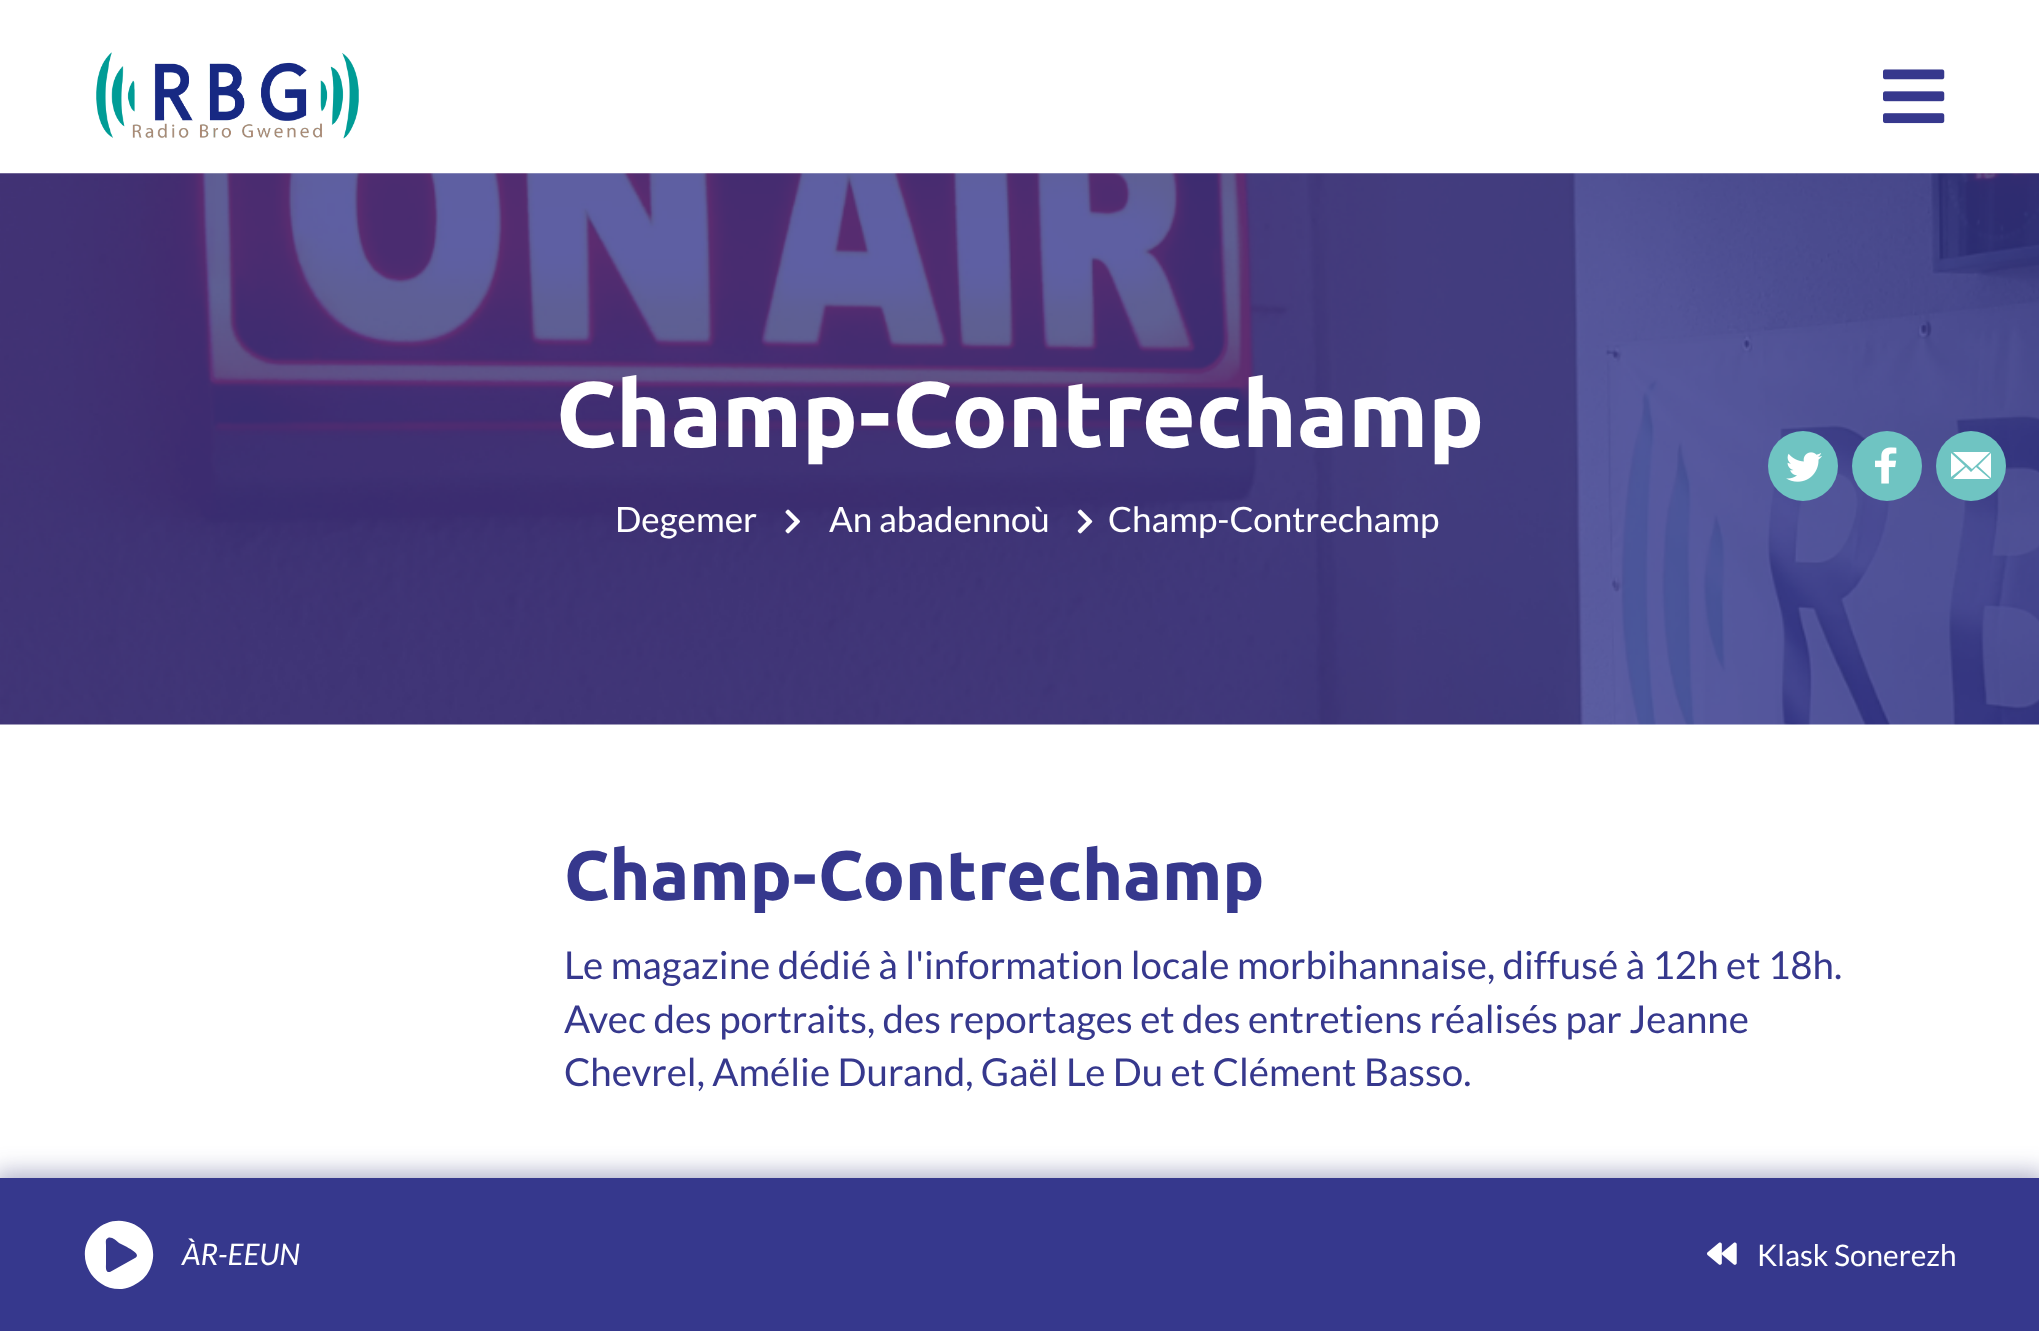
<svg xmlns="http://www.w3.org/2000/svg" width="2039" height="1331" viewBox="0 0 2039 1331">
  <style>
    .t1 { font: bold 92.75px Ubuntu; fill: #fff; }
    .t2 { font: 35px Lato; fill: #fff; }
    .t3 { font: bold 70px Ubuntu; fill: #36388d; }
    .t4 { font: 38.5px Lato; fill: #36388d; }
    .t5 { font: italic 29.75px Lato; fill: #fff; }
    .t6 { font: 29.75px Lato; fill: #fff; }
  </style>
  <rect width="100%" height="100%" fill="#fff"/>
  <image x="0" y="173" width="2039" height="552" href="images/1.png"/>
  <text x="556" y="447" class="t1">Champ-Contrechamp</text>
  <circle cx="1803" cy="466" r="35" fill="#6fc4c2"/>
  <image x="1786" y="452" width="36" height="30" href="images/2.png"/>
  <circle cx="1887" cy="466" r="35" fill="#6fc4c2"/>
  <image x="1875" y="447" width="22" height="37" href="images/3.png"/>
  <circle cx="1971" cy="466" r="35" fill="#6fc4c2"/>
  <path d="M1978 466L1991 453V478ZM1990 452H1953L1972 469ZM1951 453V477L1965 466ZM1971 472L1966 467L1953 479H1990L1976 467Z" fill="#fff"/>
  <text x="615" y="532" class="t2">Degemer</text>
  <image x="785" y="509" width="15" height="25" href="images/4.png"/>
  <text x="829" y="532" class="t2">An abadennoù</text>
  <image x="1077" y="509" width="16" height="25" href="images/5.png"/>
  <text x="1108" y="532" class="t2">Champ-Contrechamp</text>
  <text x="564" y="900" class="t3">Champ-Contrechamp</text>
  <text x="564" y="979" class="t4">Le magazine dédié à l'information locale morbihannaise, diffusé à 12h et 18h.</text>
  <text x="564" y="1033" class="t4">Avec des portraits, des reportages et des entretiens réalisés par Jeanne</text>
  <text x="564" y="1086" class="t4">Chevrel, Amélie Durand, Gaël Le Du et Clément Basso.</text>
  <image x="96" y="52" width="263" height="87" href="images/6.png"/>
  <image x="1883" y="69" width="62" height="55" href="images/7.png"/>
  <rect x="-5" y="1173" width="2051" height="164" fill="#23256d61" filter="blur(12px)"/>
  <rect x="0" y="1178" width="2039" height="153" fill="#36388d"/>
  <path d="M95 1231C118 1208 156 1227 153 1258C152 1266 149 1273 143 1279C137 1284 130 1288 122 1289C91 1291 72 1253 95 1231ZM135 1258C142 1254 128 1248 127 1247L119 1243C117 1241 111 1236 108 1238C105 1239 106 1243 106 1245V1264C106 1267 105 1273 110 1272Z" fill="#fff"/>
  <text x="182" y="1265" class="t5">ÀR-EEUN</text>
  <image x="1707" y="1242" width="30" height="23" href="images/8.png"/>
  <text x="1757" y="1266" class="t6">Klask Sonerezh</text>
</svg>
